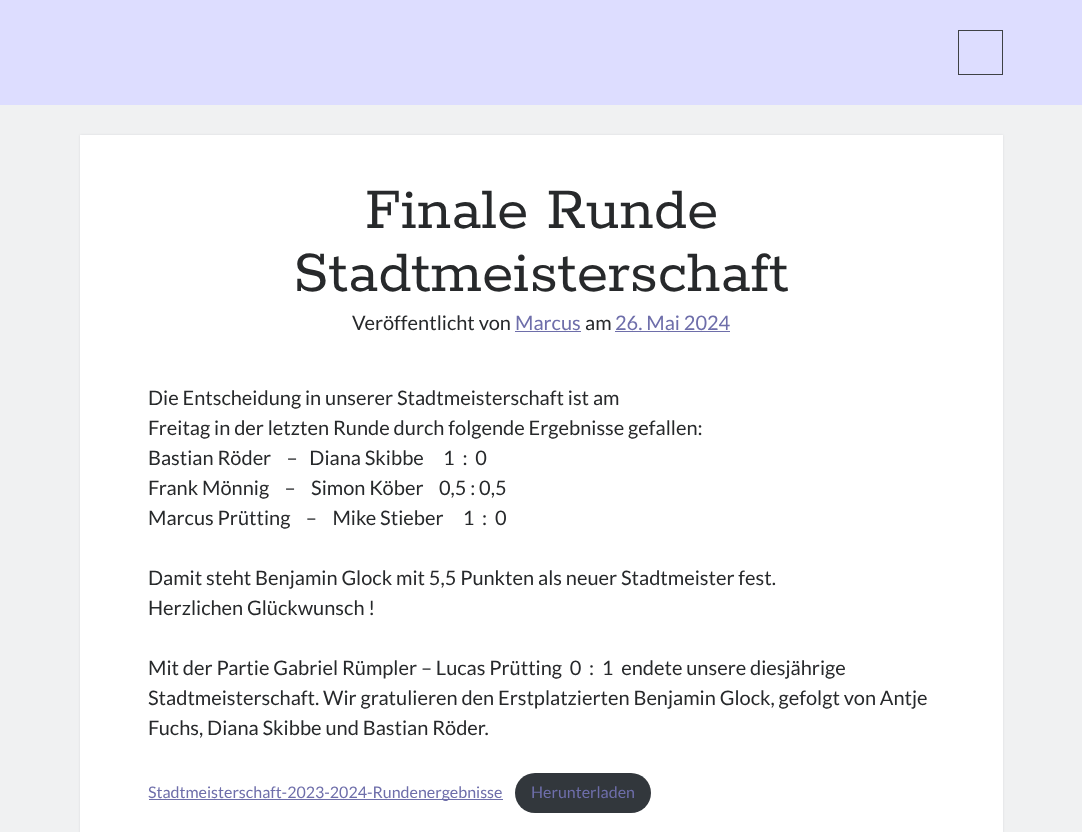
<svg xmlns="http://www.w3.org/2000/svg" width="1082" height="832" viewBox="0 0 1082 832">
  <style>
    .t1 { font: 63.75px Rokkitt; fill: #27292b; }
    .t2 { font: 20px Lato; fill: #27292b; }
    .t3 { font: 20px Lato; fill: #6e6eaa; }
    .t4 { font: 16px Lato; fill: #6e6eaa; }
  </style>
  <rect width="100%" height="100%" fill="#ddf"/>
  <rect x="958.5" y="30.5" width="44" height="44" fill="none" stroke="#3e4145"/>
  <rect x="0" y="105" width="1082" height="727" fill="#f0f1f2"/>
  <rect x="80" y="135" width="923" height="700" fill="#272b2f1a" filter="blur(1px)"/>
  <rect x="80" y="135" width="923" height="697" fill="#fff"/>
  <text x="365" y="228" class="t1">Finale Runde</text>
  <text x="293" y="291" class="t1">Stadtmeisterschaft</text>
  <text x="352" y="330" class="t2">Veröffentlicht von</text>
  <text x="515" y="330" class="t3">Marcus</text>
  <rect x="515" y="331" width="66" height="1" fill="#6e6eaa"/>
  <text x="585" y="330" class="t2">am</text>
  <text x="615" y="330" class="t3">26. Mai 2024</text>
  <rect x="615" y="331" width="115" height="1" fill="#6e6eaa"/>
  <text x="148" y="405" class="t2">Die Entscheidung in unserer Stadtmeisterschaft ist am</text>
  <text x="148" y="435" class="t2">Freitag in der letzten Runde durch folgende Ergebnisse gefallen:</text>
  <text x="148" y="465" class="t2" xml:space="preserve">Bastian Röder    –   Diana Skibbe     1  :  0</text>
  <text x="148" y="495" class="t2" xml:space="preserve">Frank Mönnig    –    Simon Köber    0,5 : 0,5</text>
  <text x="148" y="525" class="t2" xml:space="preserve">Marcus Prütting    –    Mike Stieber     1  :  0</text>
  <text x="148" y="585" class="t2">Damit steht Benjamin Glock mit 5,5 Punkten als neuer Stadtmeister fest.</text>
  <text x="148" y="615" class="t2">Herzlichen Glückwunsch !</text>
  <text x="148" y="675" class="t2" xml:space="preserve">Mit der Partie Gabriel Rümpler – Lucas Prütting  0  :  1  endete unsere diesjährige</text>
  <text x="148" y="705" class="t2">Stadtmeisterschaft. Wir gratulieren den Erstplatzierten Benjamin Glock, gefolgt von Antje</text>
  <text x="148" y="735" class="t2">Fuchs, Diana Skibbe und Bastian Röder.</text>
  <rect x="149" y="799" width="354" height="1" fill="#6e6eaa"/>
  <text x="148" y="798" class="t4">Stadtmeisterschaft-2023-2024-Rundenergebnisse</text>
  <rect x="515" y="773" width="136" height="40" rx="20" fill="#32373c"/>
  <text x="531" y="798" class="t4">Herunterladen</text>
</svg>
